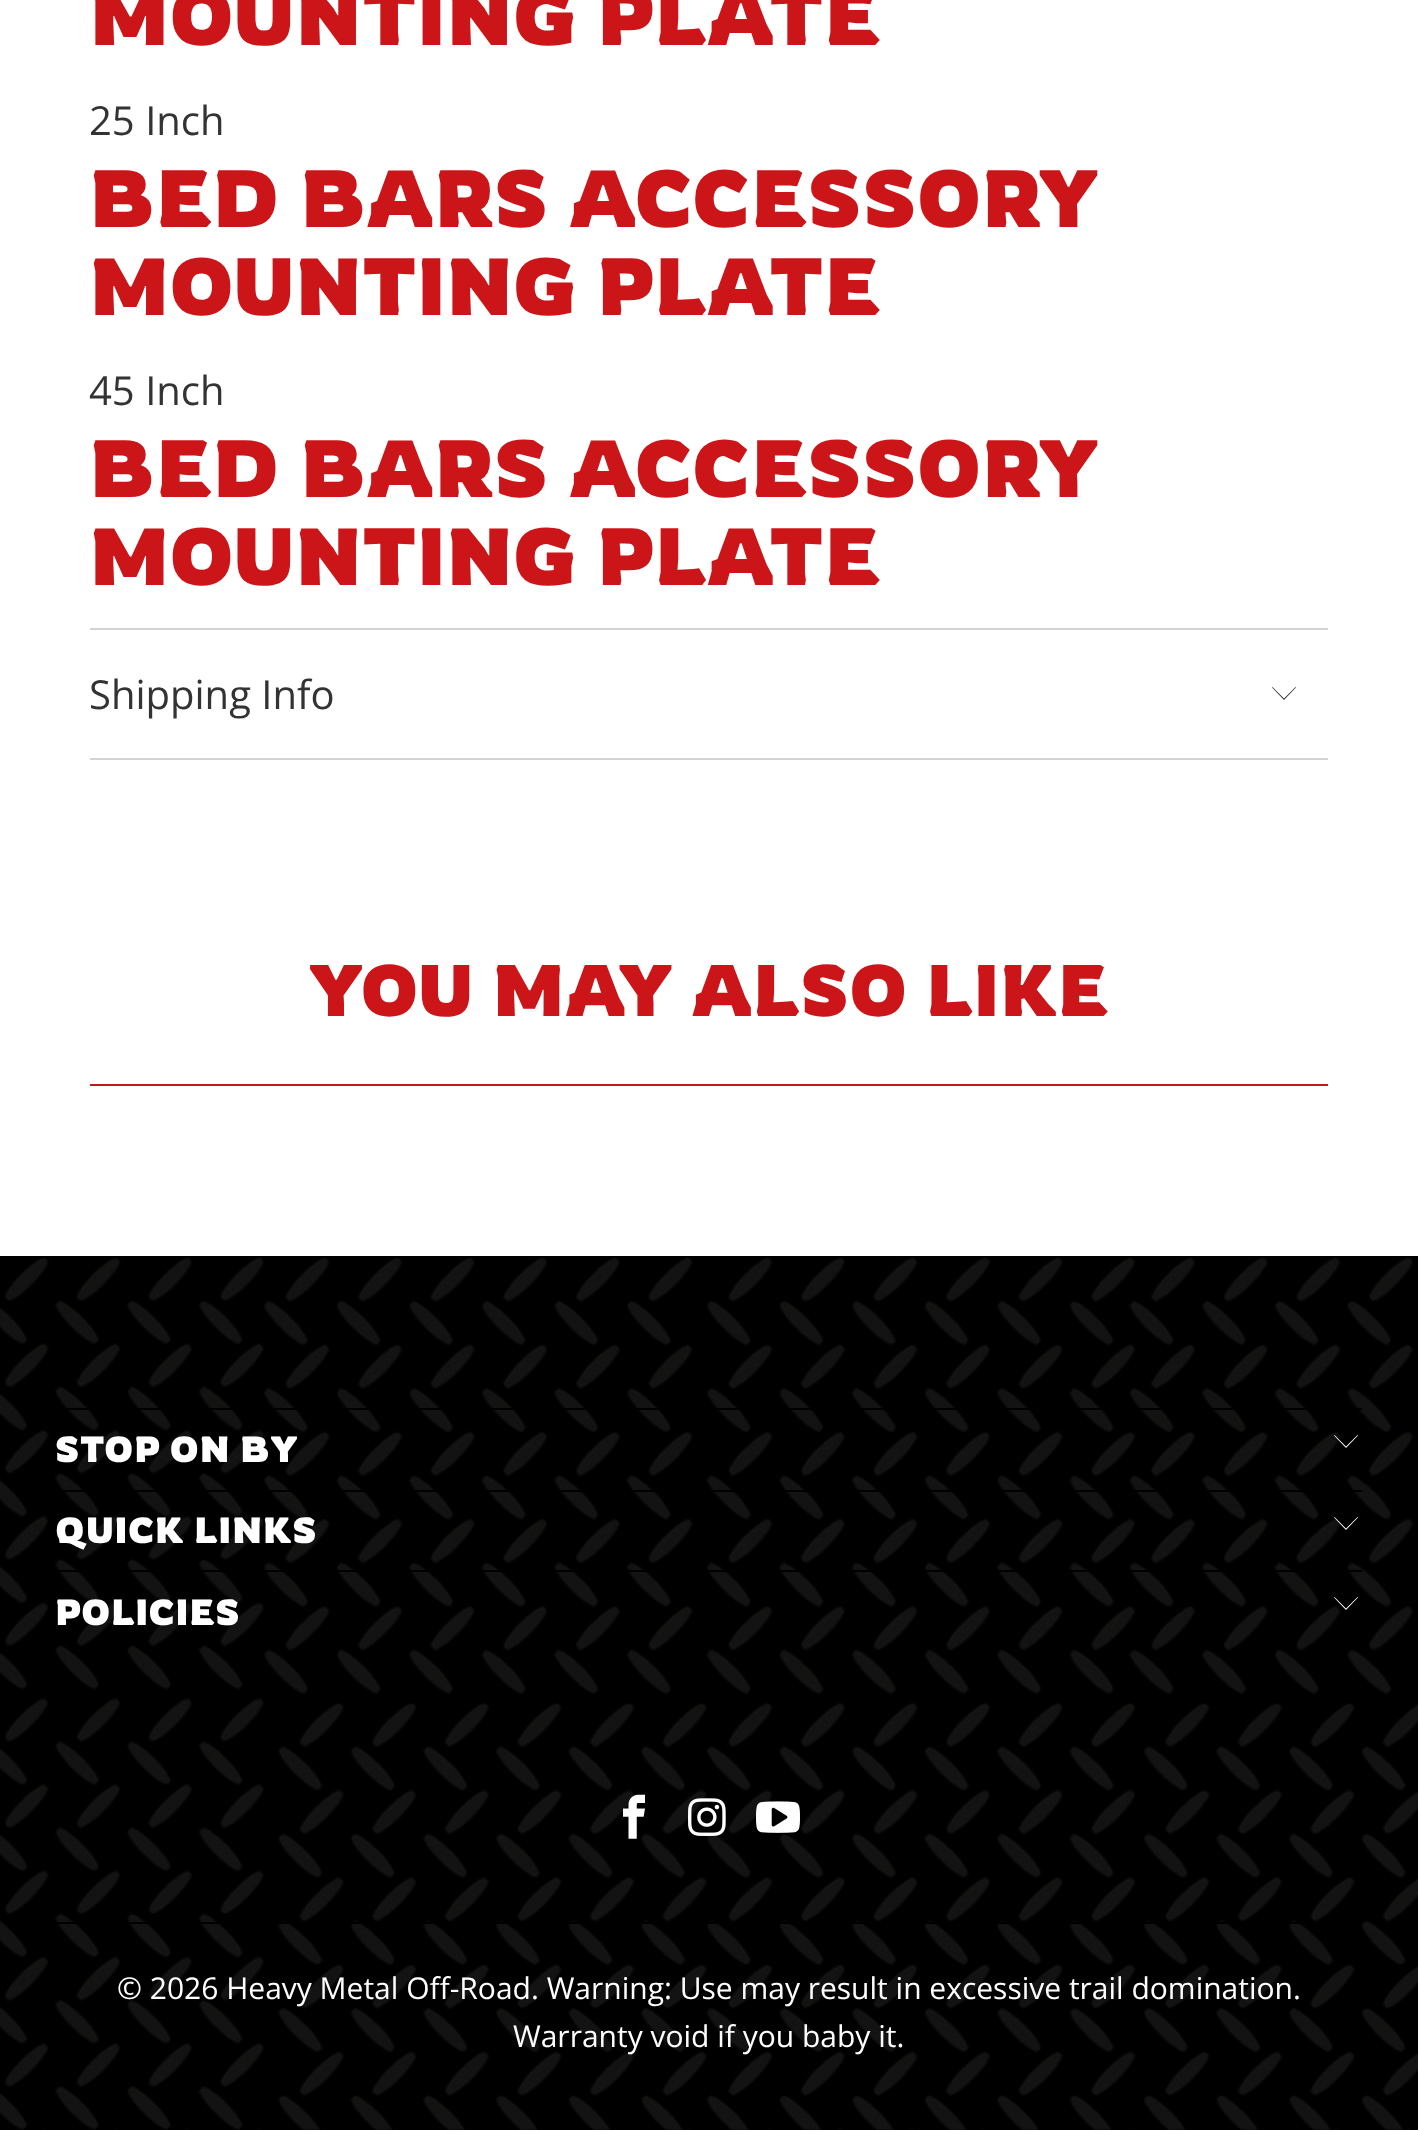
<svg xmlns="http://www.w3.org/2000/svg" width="1418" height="2130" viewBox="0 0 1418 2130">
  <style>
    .t1 { font: bold 80px Rowdies; letter-spacing: 1px; fill: #cb1518; }
    .t2 { font: 40px Open Sans; fill: #333; }
    .t3 { font: bold 72px Rowdies; letter-spacing: 1px; fill: #cb1518; }
    .t4 { font: bold 36px Rowdies; letter-spacing: 1px; fill: #fff; }
    .t5 { font: 30px Open Sans; fill: #fff; }
  </style>
  <rect width="100%" height="100%" fill="#fff"/>
  <text x="89" y="45" class="t1">MOUNTING PLATE</text>
  <text x="89" y="135" class="t2">25 Inch</text>
  <text x="89" y="227" class="t1">BED BARS ACCESSORY</text>
  <text x="89" y="315" class="t1">MOUNTING PLATE</text>
  <text x="89" y="405" class="t2">45 Inch</text>
  <text x="89" y="497" class="t1">BED BARS ACCESSORY</text>
  <text x="89" y="585" class="t1">MOUNTING PLATE</text>
  <rect x="90" y="628" width="1238" height="2" fill="#d3d3d3"/>
  <rect x="90" y="758" width="1238" height="2" fill="#d3d3d3"/>
  <text x="89" y="709" class="t2">Shipping Info</text>
  <path d="M1284 700L1272 687.5L1272.5 687L1284 698.5L1295.5 687L1296 687.5Z" fill="#333"/>
  <text x="309" y="1016" class="t3">YOU MAY ALSO LIKE</text>
  <rect x="90" y="1084" width="1238" height="2" fill="#cb1518"/>
  <rect x="0" y="1256" width="1418" height="874" fill="#000"/>
  <image x="0" y="1258" width="1418" height="872" href="images/1.png"/>
  <rect x="66" y="1408" width="1296" height="2" fill="#000"/>
  <text x="55" y="1462" class="t4">STOP ON BY</text>
  <path d="M1346 1448L1334 1435.5L1334.5 1435L1346 1446.5L1357.5 1435L1358 1435.5Z" fill="#fff"/>
  <rect x="56" y="1490" width="1306" height="2" fill="#000"/>
  <text x="55" y="1543" class="t4">QUICK LINKS</text>
  <path d="M1346 1530L1334 1517.5L1334.5 1517L1346 1528.5L1357.5 1517L1358 1517.5Z" fill="#fff"/>
  <rect x="56" y="1570" width="1306" height="2" fill="#000"/>
  <text x="55" y="1625" class="t4">POLICIES</text>
  <path d="M1346 1610L1334 1597.5L1334.5 1597L1346 1608.5L1357.5 1597L1358 1597.5Z" fill="#fff"/>
  <image x="623" y="1794" width="22" height="45" href="images/2.png"/>
  <image x="688" y="1798" width="38" height="38" href="images/3.png"/>
  <image x="756" y="1801" width="44" height="32" href="images/4.png"/>
  <rect x="56" y="1922" width="1244" height="2" fill="#000"/>
  <text x="117" y="1999" class="t5">© 2026 Heavy Metal Off-Road</text>
  <text x="531" y="1999" class="t5">. Warning: Use may result in excessive trail domination.</text>
  <text x="513" y="2047" class="t5">Warranty void if you baby it.</text>
</svg>
